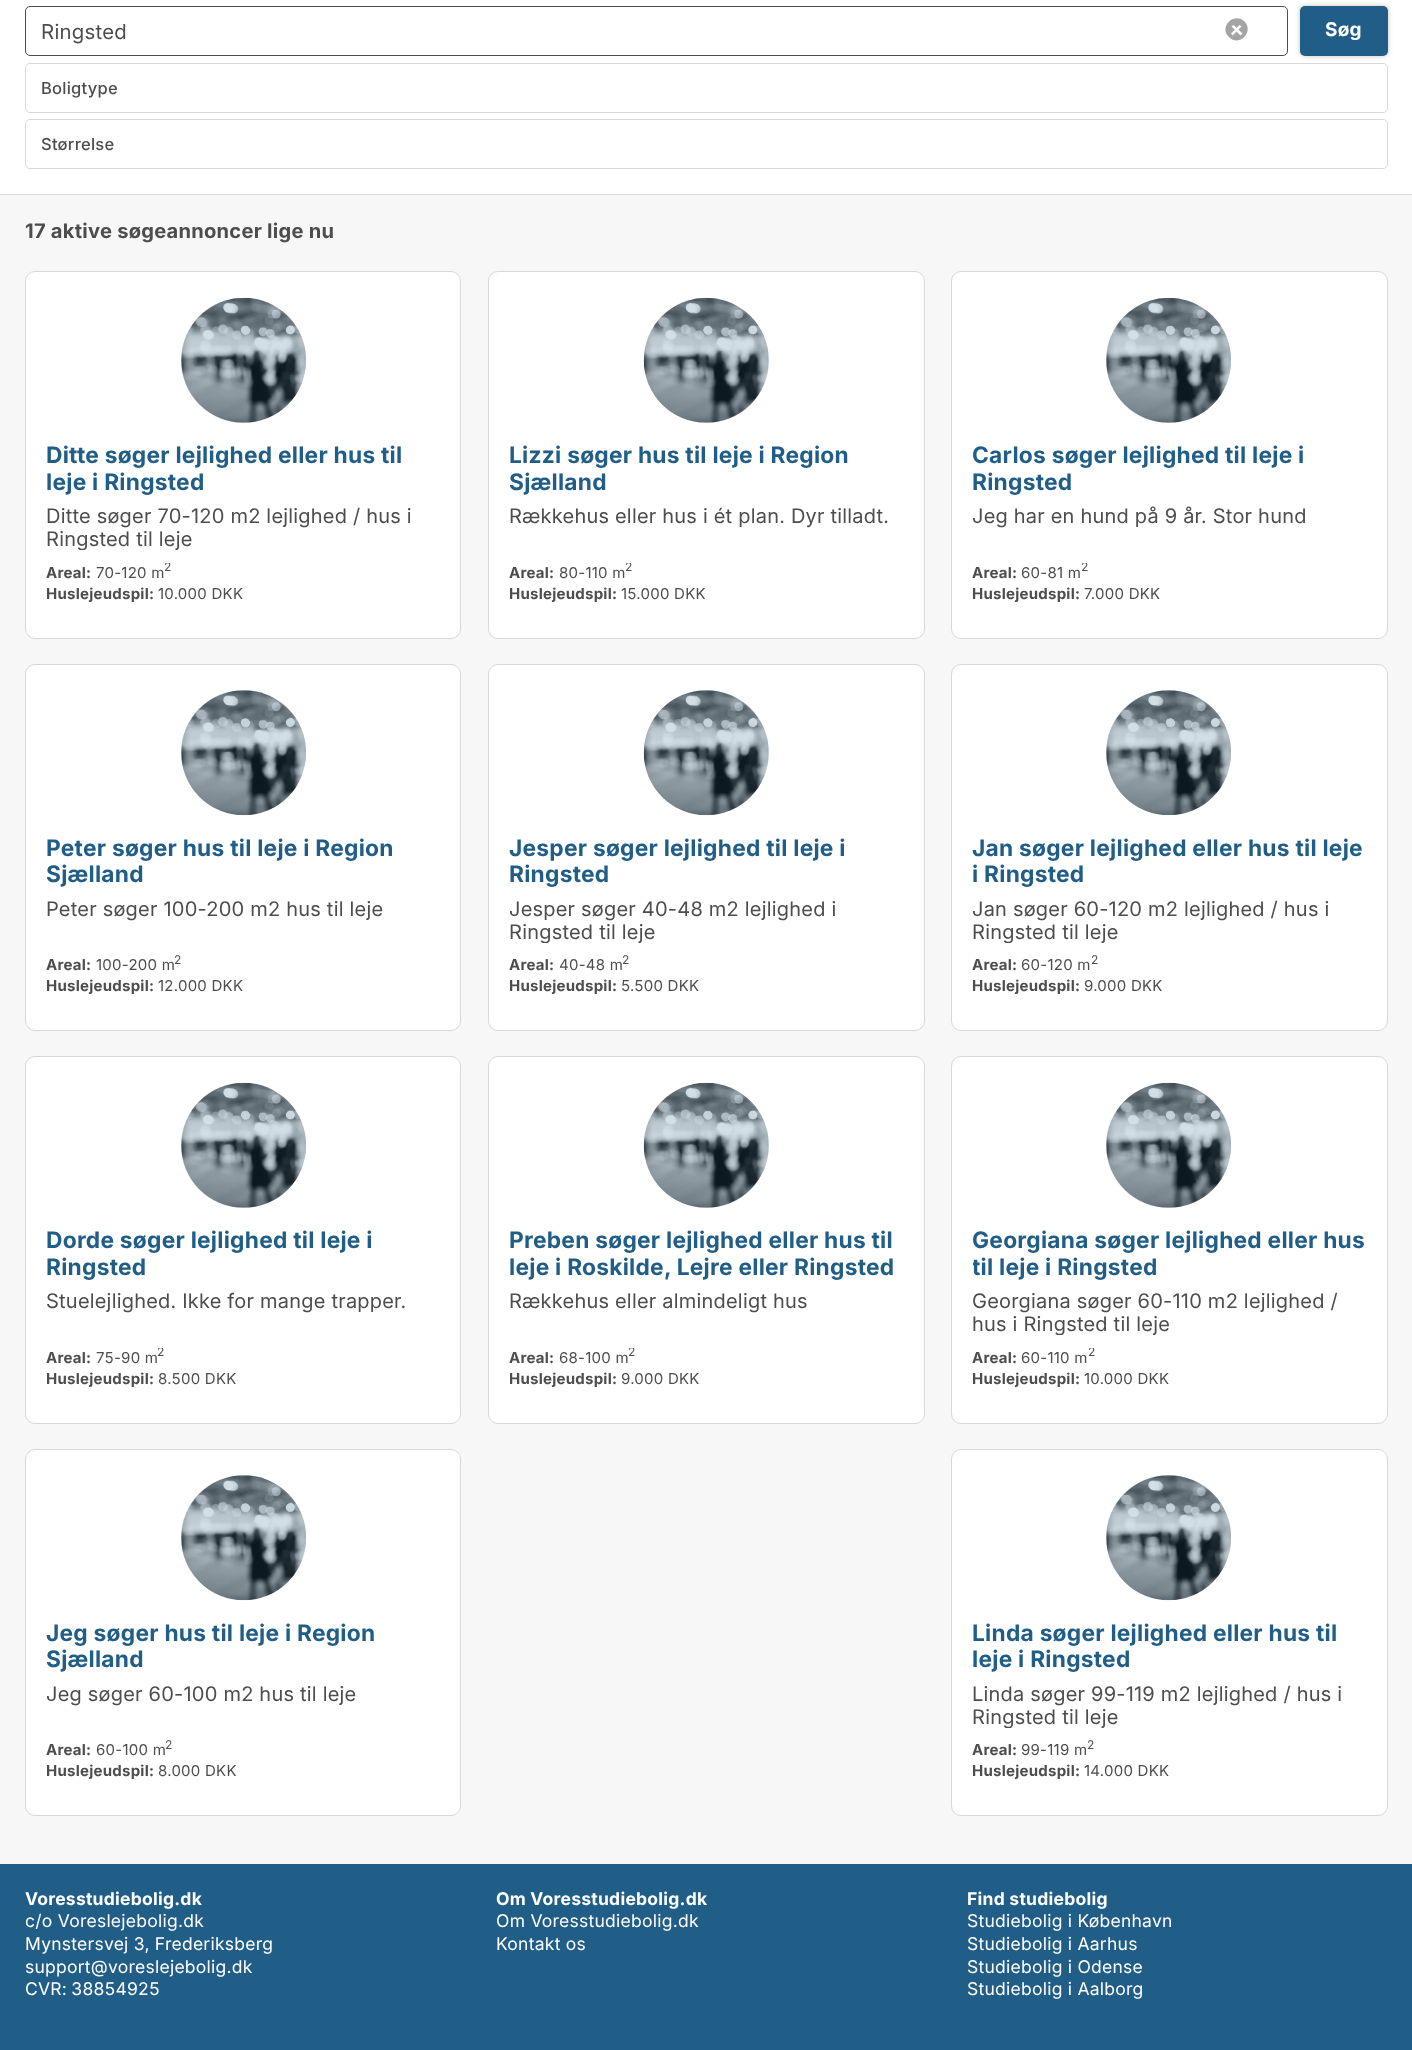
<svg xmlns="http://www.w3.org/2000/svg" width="1412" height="2050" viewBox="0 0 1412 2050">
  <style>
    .t1 { font: 20.5px 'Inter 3'; letter-spacing: 0.25px; fill: #4d4d4d; }
    .t2 { font: bold 19px Inter; letter-spacing: 0.25px; fill: #fff; }
    .t3 { font: 500 16.5px Inter; letter-spacing: 0.25px; fill: #4d4d4d; }
    .t4 { font: bold 20.1px Inter; letter-spacing: 0.25px; fill: #4d4d4d; }
    .t5 { font: bold 22.75px Inter; letter-spacing: 0.25px; fill: #215e87; }
    .t6 { font: 20.1px 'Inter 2'; letter-spacing: 0.25px; fill: #4d4d4d; }
    .t7 { font: bold 15px Inter; letter-spacing: 0.25px; fill: #4d4d4d; }
    .t8 { font: 15px Inter; letter-spacing: 0.25px; fill: #4d4d4d; }
    .t9 { font: 12px Inter; letter-spacing: 0.25px; fill: #4d4d4d; }
    .t10 { font: bold 17.5px Inter; letter-spacing: 0.25px; fill: #fff; }
    .t11 { font: 17.5px Inter; letter-spacing: 0.25px; fill: #fff; }
  </style>
  <defs>
    <clipPath id="clip1"><rect x="46" y="505" width="394" height="45"/></clipPath>
    <clipPath id="clip2"><rect x="46" y="563" width="394" height="21"/></clipPath>
    <clipPath id="clip3"><rect x="509" y="563" width="395" height="21"/></clipPath>
    <clipPath id="clip4"><rect x="973" y="563" width="393" height="21"/></clipPath>
    <clipPath id="clip5"><rect x="509" y="898" width="395" height="45"/></clipPath>
    <clipPath id="clip6"><rect x="973" y="898" width="393" height="45"/></clipPath>
    <clipPath id="clip7"><rect x="46" y="1348" width="394" height="21"/></clipPath>
    <clipPath id="clip8"><rect x="509" y="1348" width="395" height="21"/></clipPath>
    <clipPath id="clip9"><rect x="973" y="1228" width="393" height="52"/></clipPath>
    <clipPath id="clip10"><rect x="973" y="1290" width="393" height="45"/></clipPath>
    <clipPath id="clip11"><rect x="973" y="1348" width="393" height="21"/></clipPath>
    <clipPath id="clip12"><rect x="973" y="1683" width="393" height="45"/></clipPath>
  </defs>
  <rect width="100%" height="100%" fill="#215e87"/>
  <rect x="0" y="195" width="1412" height="1669" fill="#f7f7f7"/>
  <rect x="0" y="0" width="1412" height="194" fill="#fff"/>
  <rect x="0" y="194" width="1412" height="1" fill="#d8d8d8"/>
  <rect x="25.5" y="6.5" width="1262" height="49" rx="4.5" fill="none" stroke="#4d4d4d"/>
  <text x="41" y="39" class="t1">Ringsted</text>
  <path d="M1244.5 21.5C1254.5 32 1239 47.5 1229 37C1218.5 27 1234 11.5 1244.5 21.5Z" fill="#a4a4a4"/>
  <path d="M1233.5 25L1242.5 33.5L1240.5 35.5L1231.5 26.5Z" fill="#fff"/>
  <path d="M1239.5 25L1241.5 26.5L1232.5 35.5L1231 33.5Z" fill="#fff"/>
  <rect x="1300" y="6" width="88" height="50" rx="5" fill="#00000040" filter="blur(2.5px)"/>
  <rect x="1300" y="6" width="88" height="50" rx="5" fill="#215e87"/>
  <text x="1325" y="36" class="t2">Søg</text>
  <rect x="25.5" y="63.5" width="1362" height="49" rx="4.5" fill="none" stroke="#d8d8d8"/>
  <text x="41" y="94" class="t3">Boligtype</text>
  <rect x="25.5" y="119.5" width="1362" height="49" rx="4.5" fill="none" stroke="#d8d8d8"/>
  <text x="41" y="150" class="t3">Størrelse</text>
  <text x="25" y="238" class="t4">17 aktive søgeannoncer lige nu</text>
  <rect x="25.5" y="271.5" width="435" height="367" rx="9.5" fill="#fff" stroke="#d8d8d8"/>
  <image x="181" y="297" width="125" height="126" href="images/1.png"/>
  <circle cx="243.5" cy="360.5" r="62.5" fill="#215e8733"/>
  <text x="46" y="463" class="t5">Ditte søger lejlighed eller hus til</text>
  <text x="46" y="490" class="t5">leje i Ringsted</text>
  <text x="46" y="523" class="t6">Ditte søger 70-120 m2 lejlighed / hus i</text>
  <g clip-path="url(#clip1)">
    <text x="46" y="546" class="t6">Ringsted til leje</text>
  </g>
  <text x="46" y="578" class="t7">Areal:</text>
  <text x="96" y="578" class="t8">70-120 m</text>
  <g clip-path="url(#clip2)">
    <text x="164" y="571" class="t9">2</text>
  </g>
  <text x="46" y="599" class="t7">Huslejeudspil:</text>
  <text x="158" y="599" class="t8">10.000 DKK</text>
  <rect x="488.5" y="271.5" width="436" height="367" rx="9.5" fill="#fff" stroke="#d8d8d8"/>
  <image x="643" y="297" width="126" height="126" href="images/2.png"/>
  <circle cx="706.5" cy="360.5" r="62.5" fill="#215e8733"/>
  <text x="509" y="463" class="t5">Lizzi søger hus til leje i Region</text>
  <text x="509" y="490" class="t5">Sjælland</text>
  <text x="509" y="523" class="t6">Rækkehus eller hus i ét plan. Dyr tilladt.</text>
  <text x="509" y="578" class="t7">Areal:</text>
  <text x="559" y="578" class="t8">80-110 m</text>
  <g clip-path="url(#clip3)">
    <text x="625" y="571" class="t9">2</text>
  </g>
  <text x="509" y="599" class="t7">Huslejeudspil:</text>
  <text x="621" y="599" class="t8">15.000 DKK</text>
  <rect x="951.5" y="271.5" width="436" height="367" rx="9.5" fill="#fff" stroke="#d8d8d8"/>
  <image x="1106" y="297" width="125" height="126" href="images/3.png"/>
  <circle cx="1168.5" cy="360.5" r="62.5" fill="#215e8733"/>
  <text x="972" y="463" class="t5">Carlos søger lejlighed til leje i</text>
  <text x="972" y="490" class="t5">Ringsted</text>
  <text x="972" y="523" class="t6">Jeg har en hund på 9 år. Stor hund</text>
  <text x="972" y="578" class="t7">Areal:</text>
  <text x="1021" y="578" class="t8">60-81 m</text>
  <g clip-path="url(#clip4)">
    <text x="1081" y="571" class="t9">2</text>
  </g>
  <text x="972" y="599" class="t7">Huslejeudspil:</text>
  <text x="1084" y="599" class="t8">7.000 DKK</text>
  <rect x="25.5" y="664.5" width="435" height="366" rx="9.5" fill="#fff" stroke="#d8d8d8"/>
  <image x="181" y="690" width="125" height="126" href="images/4.png"/>
  <circle cx="243.5" cy="752.5" r="62.5" fill="#215e8733"/>
  <text x="46" y="856" class="t5">Peter søger hus til leje i Region</text>
  <text x="46" y="882" class="t5">Sjælland</text>
  <text x="46" y="916" class="t6">Peter søger 100-200 m2 hus til leje</text>
  <text x="46" y="970" class="t7">Areal:</text>
  <text x="96" y="970" class="t8">100-200 m</text>
  <text x="174" y="964" class="t9">2</text>
  <text x="46" y="991" class="t7">Huslejeudspil:</text>
  <text x="158" y="991" class="t8">12.000 DKK</text>
  <rect x="488.5" y="664.5" width="436" height="366" rx="9.5" fill="#fff" stroke="#d8d8d8"/>
  <image x="643" y="690" width="126" height="126" href="images/5.png"/>
  <circle cx="706.5" cy="752.5" r="62.5" fill="#215e8733"/>
  <text x="509" y="856" class="t5">Jesper søger lejlighed til leje i</text>
  <text x="509" y="882" class="t5">Ringsted</text>
  <text x="509" y="916" class="t6">Jesper søger 40-48 m2 lejlighed i</text>
  <g clip-path="url(#clip5)">
    <text x="509" y="939" class="t6">Ringsted til leje</text>
  </g>
  <text x="509" y="970" class="t7">Areal:</text>
  <text x="559" y="970" class="t8">40-48 m</text>
  <text x="622" y="964" class="t9">2</text>
  <text x="509" y="991" class="t7">Huslejeudspil:</text>
  <text x="621" y="991" class="t8">5.500 DKK</text>
  <rect x="951.5" y="664.5" width="436" height="366" rx="9.5" fill="#fff" stroke="#d8d8d8"/>
  <image x="1106" y="690" width="125" height="126" href="images/6.png"/>
  <circle cx="1168.5" cy="752.5" r="62.5" fill="#215e8733"/>
  <text x="972" y="856" class="t5">Jan søger lejlighed eller hus til leje</text>
  <text x="972" y="882" class="t5">i Ringsted</text>
  <text x="972" y="916" class="t6">Jan søger 60-120 m2 lejlighed / hus i</text>
  <g clip-path="url(#clip6)">
    <text x="972" y="939" class="t6">Ringsted til leje</text>
  </g>
  <text x="972" y="970" class="t7">Areal:</text>
  <text x="1021" y="970" class="t8">60-120 m</text>
  <text x="1091" y="964" class="t9">2</text>
  <text x="972" y="991" class="t7">Huslejeudspil:</text>
  <text x="1084" y="991" class="t8">9.000 DKK</text>
  <rect x="25.5" y="1056.5" width="435" height="367" rx="9.5" fill="#fff" stroke="#d8d8d8"/>
  <image x="181" y="1082" width="125" height="126" href="images/7.png"/>
  <circle cx="243.5" cy="1145.5" r="62.5" fill="#215e8733"/>
  <text x="46" y="1248" class="t5">Dorde søger lejlighed til leje i</text>
  <text x="46" y="1275" class="t5">Ringsted</text>
  <text x="46" y="1308" class="t6">Stuelejlighed. Ikke for mange trapper.</text>
  <text x="46" y="1363" class="t7">Areal:</text>
  <text x="96" y="1363" class="t8">75-90 m</text>
  <g clip-path="url(#clip7)">
    <text x="157" y="1356" class="t9">2</text>
  </g>
  <text x="46" y="1384" class="t7">Huslejeudspil:</text>
  <text x="158" y="1384" class="t8">8.500 DKK</text>
  <rect x="488.5" y="1056.5" width="436" height="367" rx="9.5" fill="#fff" stroke="#d8d8d8"/>
  <image x="643" y="1082" width="126" height="126" href="images/8.png"/>
  <circle cx="706.5" cy="1145.5" r="62.5" fill="#215e8733"/>
  <text x="509" y="1248" class="t5">Preben søger lejlighed eller hus til</text>
  <text x="509" y="1275" class="t5">leje i Roskilde, Lejre eller Ringsted</text>
  <text x="509" y="1308" class="t6">Rækkehus eller almindeligt hus</text>
  <text x="509" y="1363" class="t7">Areal:</text>
  <text x="559" y="1363" class="t8">68-100 m</text>
  <g clip-path="url(#clip8)">
    <text x="628" y="1356" class="t9">2</text>
  </g>
  <text x="509" y="1384" class="t7">Huslejeudspil:</text>
  <text x="621" y="1384" class="t8">9.000 DKK</text>
  <rect x="951.5" y="1056.5" width="436" height="367" rx="9.5" fill="#fff" stroke="#d8d8d8"/>
  <image x="1106" y="1082" width="125" height="126" href="images/9.png"/>
  <circle cx="1168.5" cy="1145.5" r="62.5" fill="#215e8733"/>
  <text x="972" y="1248" class="t5">Georgiana søger lejlighed eller hus</text>
  <g clip-path="url(#clip9)">
    <text x="972" y="1275" class="t5">til leje i Ringsted</text>
  </g>
  <text x="972" y="1308" class="t6">Georgiana søger 60-110 m2 lejlighed /</text>
  <g clip-path="url(#clip10)">
    <text x="972" y="1331" class="t6">hus i Ringsted til leje</text>
  </g>
  <text x="972" y="1363" class="t7">Areal:</text>
  <text x="1021" y="1363" class="t8">60-110 m</text>
  <g clip-path="url(#clip11)">
    <text x="1088" y="1356" class="t9">2</text>
  </g>
  <text x="972" y="1384" class="t7">Huslejeudspil:</text>
  <text x="1084" y="1384" class="t8">10.000 DKK</text>
  <rect x="25.5" y="1449.5" width="435" height="366" rx="9.5" fill="#fff" stroke="#d8d8d8"/>
  <image x="181" y="1475" width="125" height="126" href="images/10.png"/>
  <circle cx="243.5" cy="1537.5" r="62.5" fill="#215e8733"/>
  <text x="46" y="1641" class="t5">Jeg søger hus til leje i Region</text>
  <text x="46" y="1667" class="t5">Sjælland</text>
  <text x="46" y="1701" class="t6">Jeg søger 60-100 m2 hus til leje</text>
  <text x="46" y="1755" class="t7">Areal:</text>
  <text x="96" y="1755" class="t8">60-100 m</text>
  <text x="165" y="1749" class="t9">2</text>
  <text x="46" y="1776" class="t7">Huslejeudspil:</text>
  <text x="158" y="1776" class="t8">8.000 DKK</text>
  <rect x="951.5" y="1449.5" width="436" height="366" rx="9.5" fill="#fff" stroke="#d8d8d8"/>
  <image x="1106" y="1475" width="125" height="126" href="images/11.png"/>
  <circle cx="1168.5" cy="1537.5" r="62.5" fill="#215e8733"/>
  <text x="972" y="1641" class="t5">Linda søger lejlighed eller hus til</text>
  <text x="972" y="1667" class="t5">leje i Ringsted</text>
  <text x="972" y="1701" class="t6">Linda søger 99-119 m2 lejlighed / hus i</text>
  <g clip-path="url(#clip12)">
    <text x="972" y="1724" class="t6">Ringsted til leje</text>
  </g>
  <text x="972" y="1755" class="t7">Areal:</text>
  <text x="1021" y="1755" class="t8">99-119 m</text>
  <text x="1087" y="1749" class="t9">2</text>
  <text x="972" y="1776" class="t7">Huslejeudspil:</text>
  <text x="1084" y="1776" class="t8">14.000 DKK</text>
  <text x="25" y="1905" class="t10">Voresstudiebolig.dk</text>
  <text x="25" y="1927" class="t11">c/o Voreslejebolig.dk</text>
  <text x="25" y="1950" class="t11">Mynstersvej 3, Frederiksberg</text>
  <text x="25" y="1973" class="t11">support@voreslejebolig.dk</text>
  <text x="25" y="1995" word-spacing="-1" class="t11">CVR: 38854925</text>
  <text x="496" y="1905" class="t10">Om Voresstudiebolig.dk</text>
  <text x="496" y="1927" class="t11">Om Voresstudiebolig.dk</text>
  <text x="496" y="1950" class="t11">Kontakt os</text>
  <text x="967" y="1905" class="t10">Find studiebolig</text>
  <text x="967" y="1927" class="t11">Studiebolig i København</text>
  <text x="967" y="1950" class="t11">Studiebolig i Aarhus</text>
  <text x="967" y="1973" class="t11">Studiebolig i Odense</text>
  <text x="967" y="1995" class="t11">Studiebolig i Aalborg</text>
</svg>
